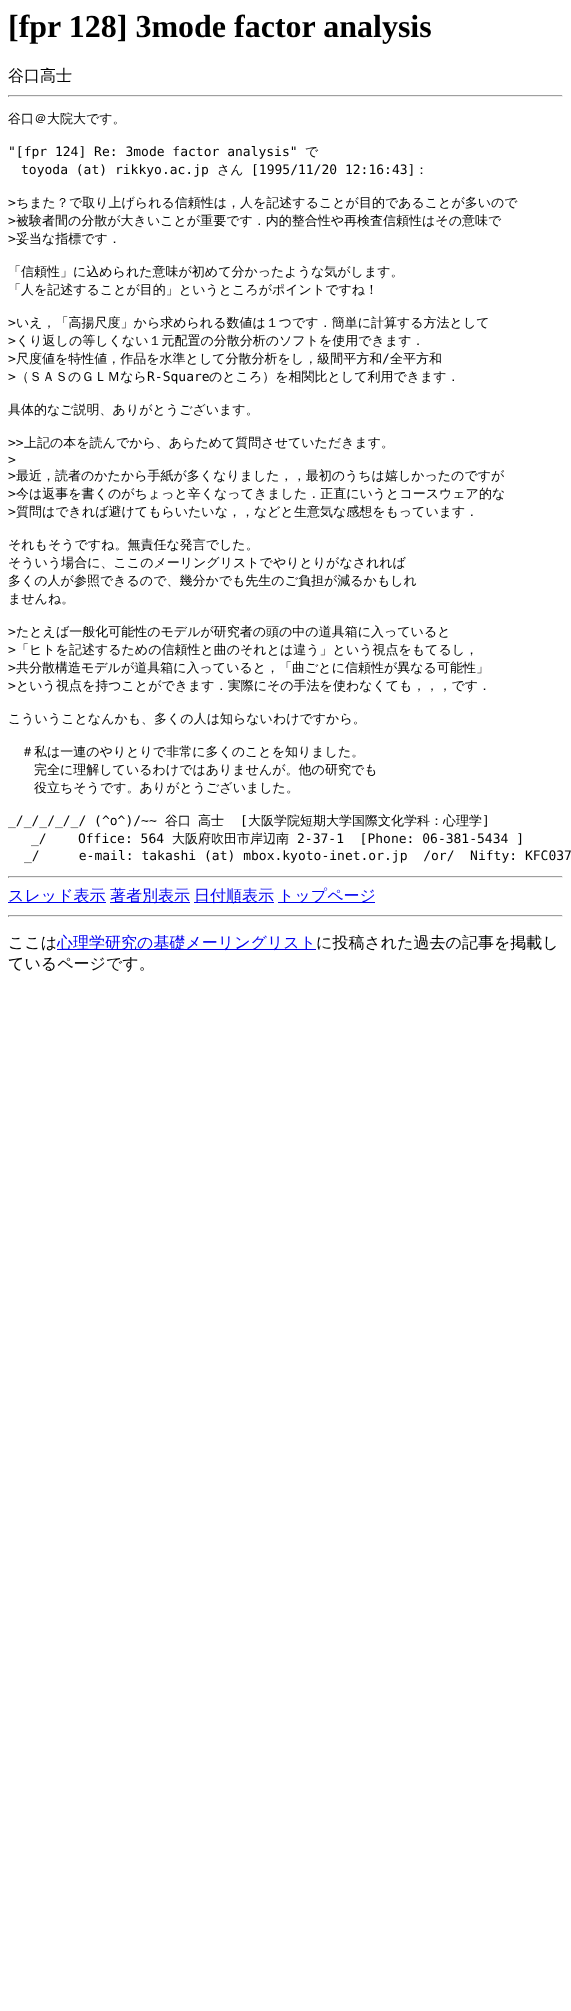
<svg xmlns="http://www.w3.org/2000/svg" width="571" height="2011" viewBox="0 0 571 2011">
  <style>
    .t1 { font: bold 32px Liberation Serif; fill: #000; }
    .t2 { font: 500 16px WenQuanYi Zen Hei; fill: #000; }
    .t3 { font: 500 13px WenQuanYi Zen Hei; fill: #000; }
    .t4 { font: 13px DejaVu Sans Mono; fill: #000; }
    .t5 { font: 500 16px WenQuanYi Zen Hei; fill: #00e; }
  </style>
  <rect width="100%" height="100%" fill="#fff"/>
  <text x="8" y="37" class="t1">[fpr 128] 3mode factor analysis</text>
  <text x="8" y="81" class="t2">谷口高士</text>
  <rect x="8" y="95" width="555" height="1" fill="#9f9f9f"/>
  <rect x="562" y="95" width="1" height="2" fill="#eee"/>
  <rect x="8" y="96" width="555" height="1" fill="#eee"/>
  <rect x="8" y="95" width="1" height="2" fill="#9f9f9f"/>
  <text x="8" y="123" class="t3">谷口＠大院大です。</text>
  <text x="8" y="156" class="t4">"[fpr 124] Re: 3mode factor analysis"</text>
  <text x="305" y="156" class="t3">で</text>
  <text x="21" y="174" class="t4">toyoda (at) rikkyo.ac.jp</text>
  <text x="217" y="174" class="t3">さん</text>
  <text x="251" y="174" class="t4">[1995/11/20 12:16:43]</text>
  <text x="415" y="174" class="t3">：</text>
  <text x="8" y="207" class="t4">&gt;</text>
  <text x="16" y="207" class="t3">ちまた？で取り上げられる信頼性は，人を記述することが目的であることが多いので</text>
  <text x="8" y="225" class="t4">&gt;</text>
  <text x="16" y="225" class="t3">被験者間の分散が大きいことが重要です．内的整合性や再検査信頼性はその意味で</text>
  <text x="8" y="243" class="t4">&gt;</text>
  <text x="16" y="243" class="t3">妥当な指標です．</text>
  <text x="8" y="276" class="t3">「信頼性」に込められた意味が初めて分かったような気がします。</text>
  <text x="8" y="294" class="t3">「人を記述することが目的」というところがポイントですね！</text>
  <text x="8" y="327" class="t4">&gt;</text>
  <text x="16" y="327" class="t3">いえ，「高揚尺度」から求められる数値は１つです．簡単に計算する方法として</text>
  <text x="8" y="345" class="t4">&gt;</text>
  <text x="16" y="345" class="t3">くり返しの等しくない１元配置の分散分析のソフトを使用できます．</text>
  <text x="8" y="363" class="t4">&gt;</text>
  <text x="16" y="363" class="t3">尺度値を特性値，作品を水準として分散分析をし，級間平方和</text>
  <text x="382" y="363" class="t4">/</text>
  <text x="390" y="363" class="t3">全平方和</text>
  <text x="8" y="381" class="t4">&gt;</text>
  <text x="16" y="381" class="t3">（ＳＡＳのＧＬＭなら</text>
  <text x="147" y="381" class="t4">R-Square</text>
  <text x="209" y="381" class="t3">のところ）を相関比として利用できます．</text>
  <text x="8" y="414" class="t3">具体的なご説明、ありがとうございます。</text>
  <text x="8" y="447" class="t4">&gt;&gt;</text>
  <text x="24" y="447" class="t3">上記の本を読んでから、あらためて質問させていただきます。</text>
  <text x="8" y="464" class="t4">&gt;</text>
  <text x="8" y="480" class="t4">&gt;</text>
  <text x="16" y="480" class="t3">最近，読者のかたから手紙が多くなりました，，最初のうちは嬉しかったのですが</text>
  <text x="8" y="498" class="t4">&gt;</text>
  <text x="16" y="498" class="t3">今は返事を書くのがちょっと辛くなってきました．正直にいうとコースウェア的な</text>
  <text x="8" y="516" class="t4">&gt;</text>
  <text x="16" y="516" class="t3">質問はできれば避けてもらいたいな，，などと生意気な感想をもっています．</text>
  <text x="8" y="549" class="t3">それもそうですね。無責任な発言でした。</text>
  <text x="8" y="567" class="t3">そういう場合に、ここのメーリングリストでやりとりがなされれば</text>
  <text x="8" y="585" class="t3">多くの人が参照できるので、幾分かでも先生のご負担が減るかもしれ</text>
  <text x="8" y="603" class="t3">ませんね。</text>
  <text x="8" y="636" class="t4">&gt;</text>
  <text x="16" y="636" class="t3">たとえば一般化可能性のモデルが研究者の頭の中の道具箱に入っていると</text>
  <text x="8" y="654" class="t4">&gt;</text>
  <text x="16" y="654" class="t3">「ヒトを記述するための信頼性と曲のそれとは違う」という視点をもてるし，</text>
  <text x="8" y="672" class="t4">&gt;</text>
  <text x="16" y="672" class="t3">共分散構造モデルが道具箱に入っていると，「曲ごとに信頼性が異なる可能性」</text>
  <text x="8" y="690" class="t4">&gt;</text>
  <text x="16" y="690" class="t3">という視点を持つことができます．実際にその手法を使わなくても，，，です．</text>
  <text x="8" y="723" class="t3">こういうことなんかも、多くの人は知らないわけですから。</text>
  <text x="21" y="756" class="t3">＃私は一連のやりとりで非常に多くのことを知りました。</text>
  <text x="34" y="774" class="t3">完全に理解しているわけではありませんが。他の研究でも</text>
  <text x="34" y="792" class="t3">役立ちそうです。ありがとうございました。</text>
  <text x="8" y="825" class="t4">_/_/_/_/_/ (^o^)/~~</text>
  <text x="165" y="825" class="t3">谷口</text>
  <text x="198" y="825" class="t3">高士</text>
  <text x="240" y="825" class="t4">[</text>
  <text x="248" y="825" class="t3">大阪学院短期大学国際文化学科：心理学</text>
  <text x="482" y="825" class="t4">]</text>
  <text x="31" y="843" class="t4" xml:space="preserve">_/    Office: 564</text>
  <text x="172" y="843" class="t3">大阪府吹田市岸辺南</text>
  <text x="297" y="843" class="t4" xml:space="preserve">2-37-1  [Phone: 06-381-5434 ]</text>
  <text x="24" y="860" class="t4" xml:space="preserve">_/     e-mail: takashi (at) mbox.kyoto-inet.or.jp  /or/  Nifty: KFC037</text>
  <rect x="8" y="876" width="555" height="1" fill="#9f9f9f"/>
  <rect x="562" y="876" width="1" height="2" fill="#eee"/>
  <rect x="8" y="877" width="555" height="1" fill="#eee"/>
  <rect x="8" y="876" width="1" height="2" fill="#9f9f9f"/>
  <rect x="8" y="902" width="98" height="1" fill="#00e"/>
  <text x="8" y="901" class="t5">スレッド表示</text>
  <rect x="110" y="902" width="80" height="1" fill="#00e"/>
  <text x="110" y="901" class="t5">著者別表示</text>
  <rect x="194" y="902" width="80" height="1" fill="#00e"/>
  <text x="194" y="901" class="t5">日付順表示</text>
  <rect x="278" y="902" width="97" height="1" fill="#00e"/>
  <text x="278" y="901" class="t5">トップページ</text>
  <rect x="8" y="915" width="555" height="1" fill="#9f9f9f"/>
  <rect x="562" y="915" width="1" height="2" fill="#eee"/>
  <rect x="8" y="916" width="555" height="1" fill="#eee"/>
  <rect x="8" y="915" width="1" height="2" fill="#9f9f9f"/>
  <text x="8" y="948" class="t2">ここは</text>
  <rect x="57" y="949" width="259" height="1" fill="#00e"/>
  <text x="57" y="948" class="t5">心理学研究の基礎メーリングリスト</text>
  <text x="316" y="948" class="t2">に投稿された過去の記事を掲載し</text>
  <text x="8" y="969" class="t2">ているページです。</text>
</svg>
